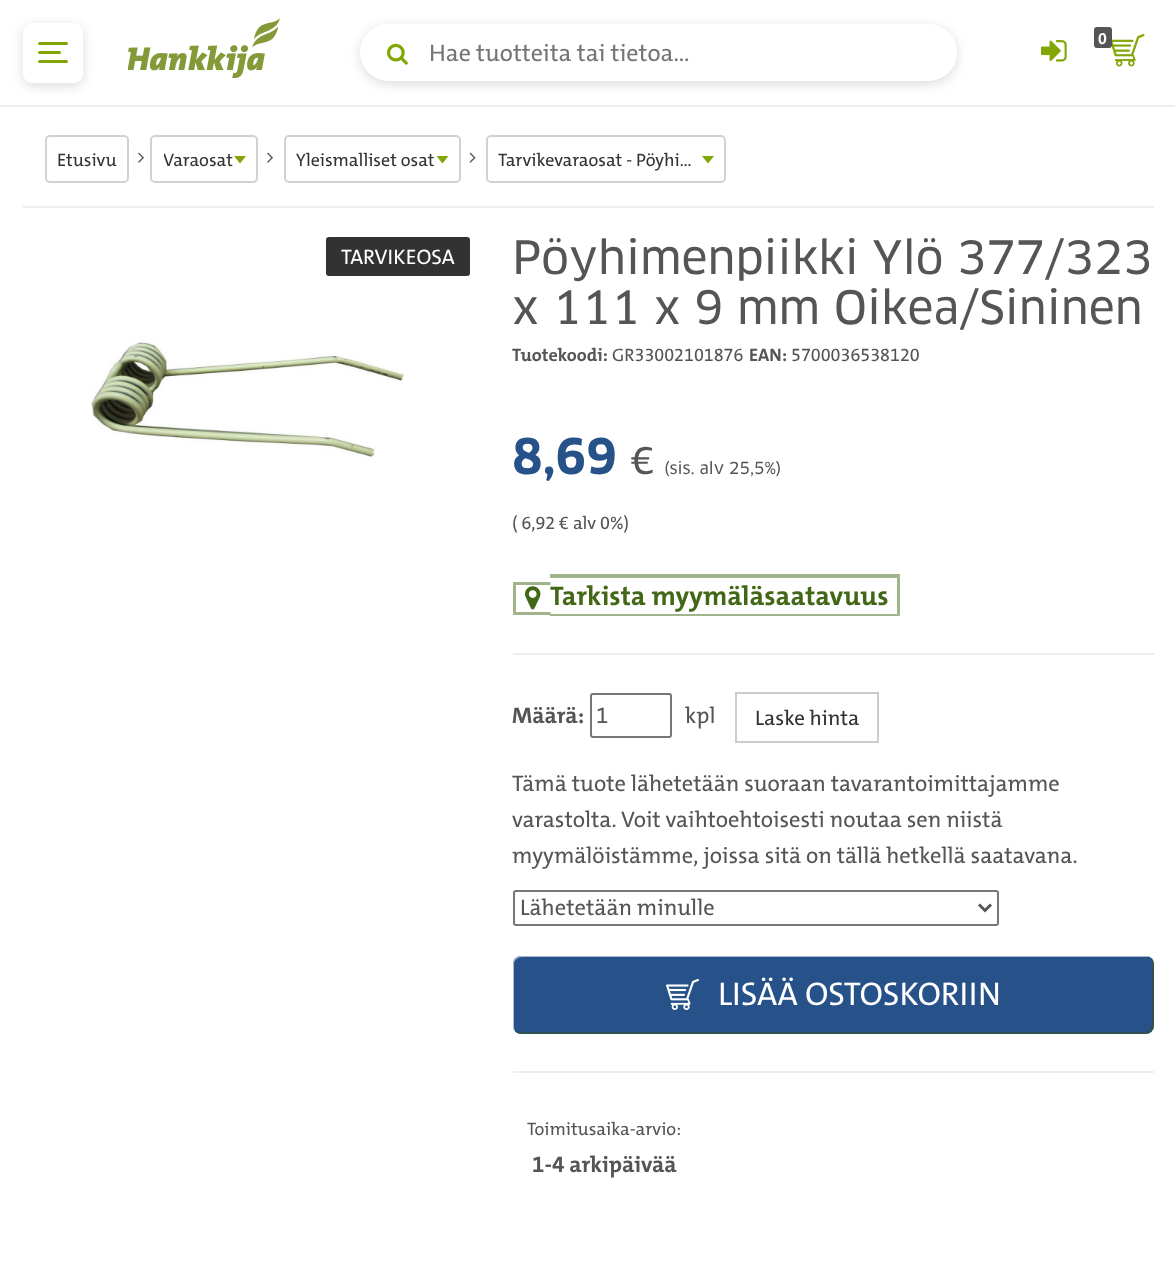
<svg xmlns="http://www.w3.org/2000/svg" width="1175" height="1265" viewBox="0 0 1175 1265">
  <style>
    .t1 { font: bold 16px 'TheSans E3'; fill: #fff; }
    .t2 { font: 24px 'TheSans E3'; fill: #757575; }
    .t3 { font: 18px 'TheSans E3'; fill: #333; }
    .t4 { font: 21px 'TheSans E3'; fill: #fff; }
    .t5 { font: 45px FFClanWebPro; fill: #555; }
    .t6 { font: bold 18px 'TheSans E3'; fill: #555; }
    .t7 { font: 18px 'TheSans E3'; fill: #555; }
    .t8 { font: 48px 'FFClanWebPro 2'; fill: #265189; }
    .t9 { font: 36px FFClanWebPro; fill: #555; }
    .t10 { font: 16.25px FFClanWebPro; fill: #555; }
    .t11 { font: bold 27px 'TheSans E3'; fill: #426716; }
    .t12 { font: bold 22.5px 'TheSans E3'; fill: #555; }
    .t13 { font: 22.5px 'TheSans E3'; fill: #555; }
    .t14 { font: 21px 'TheSans E3'; fill: #333; }
    .t15 { font: 33px 'TheSans E3'; fill: #fff; }
  </style>
  <defs>
    <clipPath id="clip1"><rect x="164" y="141" width="69" height="36"/></clipPath>
  </defs>
  <rect width="100%" height="100%" fill="#fff"/>
  <rect x="0" y="105" width="1175" height="2" fill="#eee"/>
  <rect x="23" y="26" width="60" height="60" rx="9" fill="#50505033" filter="blur(6px)"/>
  <rect x="23" y="23" width="60" height="60" rx="9" fill="#fff"/>
  <rect x="38" y="42" width="30" height="3" rx="1.5" fill="#82a705"/>
  <rect x="38" y="51" width="23" height="3" rx="1.5" fill="#82a705"/>
  <rect x="38" y="60" width="30" height="3" rx="1.5" fill="#82a705"/>
  <image x="128" y="18" width="152" height="60" href="images/1.png"/>
  <image x="1111" y="34" width="34" height="33" href="images/2.png"/>
  <rect x="1094" y="27" width="18" height="21" rx="3" fill="#555"/>
  <text x="1098" y="44" class="t1">0</text>
  <image x="1041" y="40" width="26" height="22" href="images/3.png"/>
  <rect x="360" y="27" width="597" height="57" rx="28.5" fill="#50505033" filter="blur(6px)"/>
  <rect x="360" y="24" width="597" height="57" rx="28.5" fill="#fff"/>
  <image x="387" y="43" width="21" height="22" href="images/4.png"/>
  <text x="429" y="61" class="t2">Hae tuotteita tai tietoa...</text>
  <rect x="23" y="206" width="1131" height="2" fill="#eee"/>
  <rect x="46" y="136" width="82" height="46" rx="4" fill="none" stroke="#d2d2d2" stroke-width="2"/>
  <text x="57" y="166" class="t3">Etusivu</text>
  <image x="138" y="152" width="6" height="11" href="images/5.png"/>
  <rect x="151" y="136" width="106" height="46" rx="4" fill="none" stroke="#d2d2d2" stroke-width="2"/>
  <g clip-path="url(#clip1)">
    <text x="163" y="166" class="t3">Varaosat</text>
  </g>
  <path d="M234 156H246L240 163.5Z" fill="#82a705"/>
  <image x="267" y="152" width="6" height="11" href="images/5.png"/>
  <rect x="285" y="136" width="175" height="46" rx="4" fill="none" stroke="#d2d2d2" stroke-width="2"/>
  <text x="296" y="166" class="t3">Yleismalliset osat</text>
  <path d="M436.5 156H448.5L442.5 163.5Z" fill="#82a705"/>
  <image x="469" y="152" width="7" height="11" href="images/6.png"/>
  <rect x="487" y="136" width="238" height="46" rx="4" fill="none" stroke="#d2d2d2" stroke-width="2"/>
  <text x="498" y="166" class="t3">Tarvikevaraosat - Pöyhi…</text>
  <path d="M702 156H714L708 163.5Z" fill="#82a705"/>
  <rect x="326" y="237" width="144" height="39" rx="3" fill="#323232"/>
  <text x="341" y="264" class="t4">TARVIKEOSA</text>
  <image x="90" y="340" width="314" height="117" href="images/7.png"/>
  <text x="512" y="274" class="t5">Pöyhimenpiikki Ylö 377/323</text>
  <text x="512" y="324" class="t5">x 111 x 9 mm Oikea/Sininen</text>
  <text x="512" y="361" class="t6">Tuotekoodi:</text>
  <text x="612" y="361" class="t7">GR33002101876</text>
  <text x="749" y="361" class="t6">EAN:</text>
  <text x="791" y="361" class="t7">5700036538120</text>
  <text x="512" y="474" class="t8">8,69</text>
  <text x="630" y="474" class="t9">€</text>
  <text x="664" y="474" class="t10">(sis. alv 25,5%)</text>
  <text x="512" y="529" class="t7">( 6,92 € alv 0%)</text>
  <path d="M513 582H550.5V585H516ZM550.5 615H513L516 612H550.5Z" fill="#a1b38b"/>
  <path d="M513 615V582L516 585V612Z" fill="#42671680"/>
  <path d="M550 574H900L897 578H550Z" fill="#a1b38b"/>
  <path d="M900 574V616L897 614V578Z" fill="#42671680"/>
  <path d="M900 616H550V614H897Z" fill="#42671680"/>
  <image x="525" y="586" width="16" height="24" href="images/8.png"/>
  <text x="550" y="605" class="t11">Tarkista myymäläsaatavuus</text>
  <rect x="513" y="653" width="641" height="2" fill="#eee"/>
  <text x="512" y="723" class="t12">Määrä:</text>
  <rect x="591" y="694" width="80" height="43" rx="2" fill="none" stroke="#767676" stroke-width="2"/>
  <text x="596" y="723" class="t13">1</text>
  <text x="685" y="723" class="t13">kpl</text>
  <rect x="736" y="693" width="142" height="49" fill="none" stroke="#ccc" stroke-width="2"/>
  <text x="755" y="725" class="t14">Laske hinta</text>
  <text x="512" y="791" class="t13">Tämä tuote lähetetään suoraan tavarantoimittajamme</text>
  <text x="512" y="827" class="t13">varastolta. Voit vaihtoehtoisesti noutaa sen niistä</text>
  <text x="512" y="863" class="t13">myymälöistämme, joissa sitä on tällä hetkellä saatavana.</text>
  <rect x="514" y="891" width="484" height="34" rx="2" fill="none" stroke="#767676" stroke-width="2"/>
  <path d="M979 904.5L985 910.5L991 904.5" fill="none" stroke="#555" stroke-width="3"/>
  <text x="520" y="915" class="t13">Lähetetään minulle</text>
  <rect x="513" y="956" width="641" height="78" rx="8" fill="#265189"/>
  <path d="M514 1030C515 1032 518 1034 521 1034H1146C1150 1034 1154 1030 1154 1026V964C1154 962 1153 959 1151 958L1152 962V1024C1152 1029 1149 1032 1144 1032H519C517 1032 515 1031 514 1030Z" fill="#42560066"/>
  <path d="M522 957H1148H1151C1149 957 1148 956 1146 956H521C517 956 513 960 513 964V1026C513 1028 514 1030 515 1031L514 1028V964C514 960 518 957 522 957Z" fill="#ffffff99"/>
  <image x="666" y="979" width="33" height="31" href="images/9.png"/>
  <text x="718" y="1005" class="t15">LISÄÄ OSTOSKORIIN</text>
  <rect x="513" y="1071" width="641" height="2" fill="#eee"/>
  <text x="527" y="1135" class="t7">Toimitusaika-arvio:</text>
  <text x="532" y="1172" class="t12">1-4 arkipäivää</text>
</svg>
